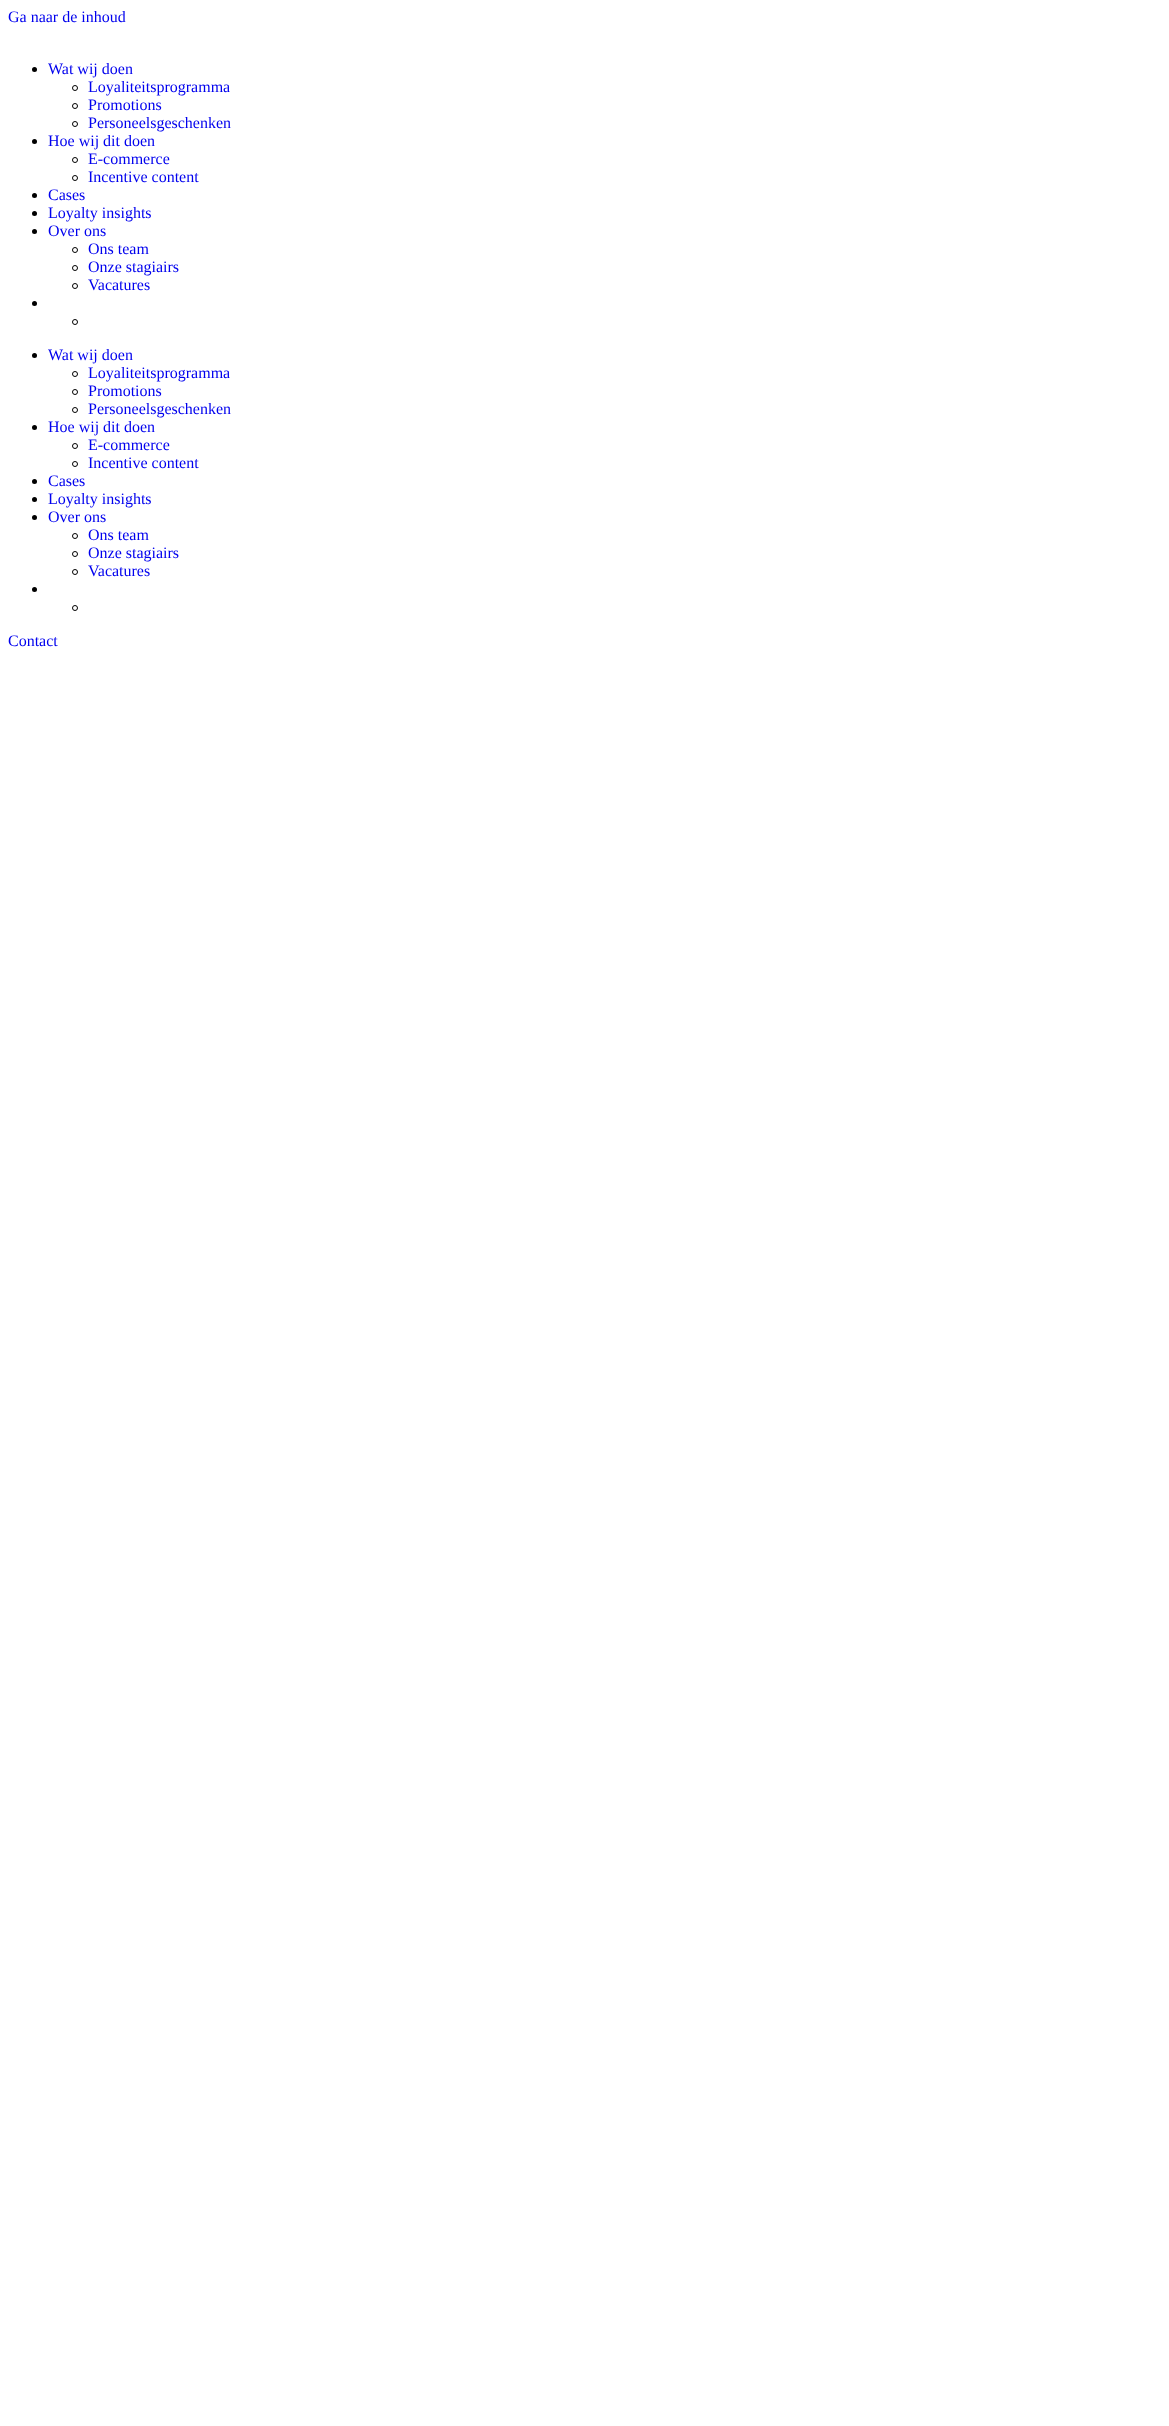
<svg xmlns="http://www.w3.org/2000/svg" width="1169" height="2426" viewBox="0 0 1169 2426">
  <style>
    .t1 { font: 16px Liberation Serif; fill: #00e; }
  </style>
  <rect width="100%" height="100%" fill="#fff"/>
  <text x="8" y="22" class="t1">Ga naar de inhoud</text>
  <circle cx="34.5" cy="69.5" r="2.5" fill="#000"/>
  <text x="48" y="74" class="t1">Wat wij doen</text>
  <circle cx="75" cy="88" r="2.5" fill="none" stroke="#000"/>
  <text x="88" y="92" class="t1">Loyaliteitsprogramma</text>
  <circle cx="75" cy="106" r="2.5" fill="none" stroke="#000"/>
  <text x="88" y="110" class="t1">Promotions</text>
  <circle cx="75" cy="124" r="2.5" fill="none" stroke="#000"/>
  <text x="88" y="128" class="t1">Personeelsgeschenken</text>
  <circle cx="34.5" cy="141.5" r="2.5" fill="#000"/>
  <text x="48" y="146" class="t1">Hoe wij dit doen</text>
  <circle cx="75" cy="160" r="2.5" fill="none" stroke="#000"/>
  <text x="88" y="164" class="t1">E-commerce</text>
  <circle cx="75" cy="178" r="2.5" fill="none" stroke="#000"/>
  <text x="88" y="182" class="t1">Incentive content</text>
  <circle cx="34.5" cy="195.5" r="2.5" fill="#000"/>
  <text x="48" y="200" class="t1">Cases</text>
  <circle cx="34.5" cy="213.5" r="2.5" fill="#000"/>
  <text x="48" y="218" class="t1">Loyalty insights</text>
  <circle cx="34.5" cy="231.5" r="2.5" fill="#000"/>
  <text x="48" y="236" class="t1">Over ons</text>
  <circle cx="75" cy="250" r="2.5" fill="none" stroke="#000"/>
  <text x="88" y="254" class="t1">Ons team</text>
  <circle cx="75" cy="268" r="2.5" fill="none" stroke="#000"/>
  <text x="88" y="272" class="t1">Onze stagiairs</text>
  <circle cx="75" cy="286" r="2.5" fill="none" stroke="#000"/>
  <text x="88" y="290" class="t1">Vacatures</text>
  <circle cx="34.5" cy="303.5" r="2.5" fill="#000"/>
  <circle cx="75" cy="322" r="2.5" fill="none" stroke="#000"/>
  <circle cx="34.5" cy="355.5" r="2.5" fill="#000"/>
  <text x="48" y="360" class="t1">Wat wij doen</text>
  <circle cx="75" cy="374" r="2.5" fill="none" stroke="#000"/>
  <text x="88" y="378" class="t1">Loyaliteitsprogramma</text>
  <circle cx="75" cy="392" r="2.5" fill="none" stroke="#000"/>
  <text x="88" y="396" class="t1">Promotions</text>
  <circle cx="75" cy="410" r="2.5" fill="none" stroke="#000"/>
  <text x="88" y="414" class="t1">Personeelsgeschenken</text>
  <circle cx="34.5" cy="427.5" r="2.5" fill="#000"/>
  <text x="48" y="432" class="t1">Hoe wij dit doen</text>
  <circle cx="75" cy="446" r="2.5" fill="none" stroke="#000"/>
  <text x="88" y="450" class="t1">E-commerce</text>
  <circle cx="75" cy="464" r="2.5" fill="none" stroke="#000"/>
  <text x="88" y="468" class="t1">Incentive content</text>
  <circle cx="34.5" cy="481.5" r="2.5" fill="#000"/>
  <text x="48" y="486" class="t1">Cases</text>
  <circle cx="34.5" cy="499.5" r="2.5" fill="#000"/>
  <text x="48" y="504" class="t1">Loyalty insights</text>
  <circle cx="34.5" cy="517.5" r="2.5" fill="#000"/>
  <text x="48" y="522" class="t1">Over ons</text>
  <circle cx="75" cy="536" r="2.5" fill="none" stroke="#000"/>
  <text x="88" y="540" class="t1">Ons team</text>
  <circle cx="75" cy="554" r="2.5" fill="none" stroke="#000"/>
  <text x="88" y="558" class="t1">Onze stagiairs</text>
  <circle cx="75" cy="572" r="2.5" fill="none" stroke="#000"/>
  <text x="88" y="576" class="t1">Vacatures</text>
  <circle cx="34.5" cy="589.5" r="2.5" fill="#000"/>
  <circle cx="75" cy="608" r="2.5" fill="none" stroke="#000"/>
  <text x="8" y="646" class="t1">Contact</text>
</svg>
